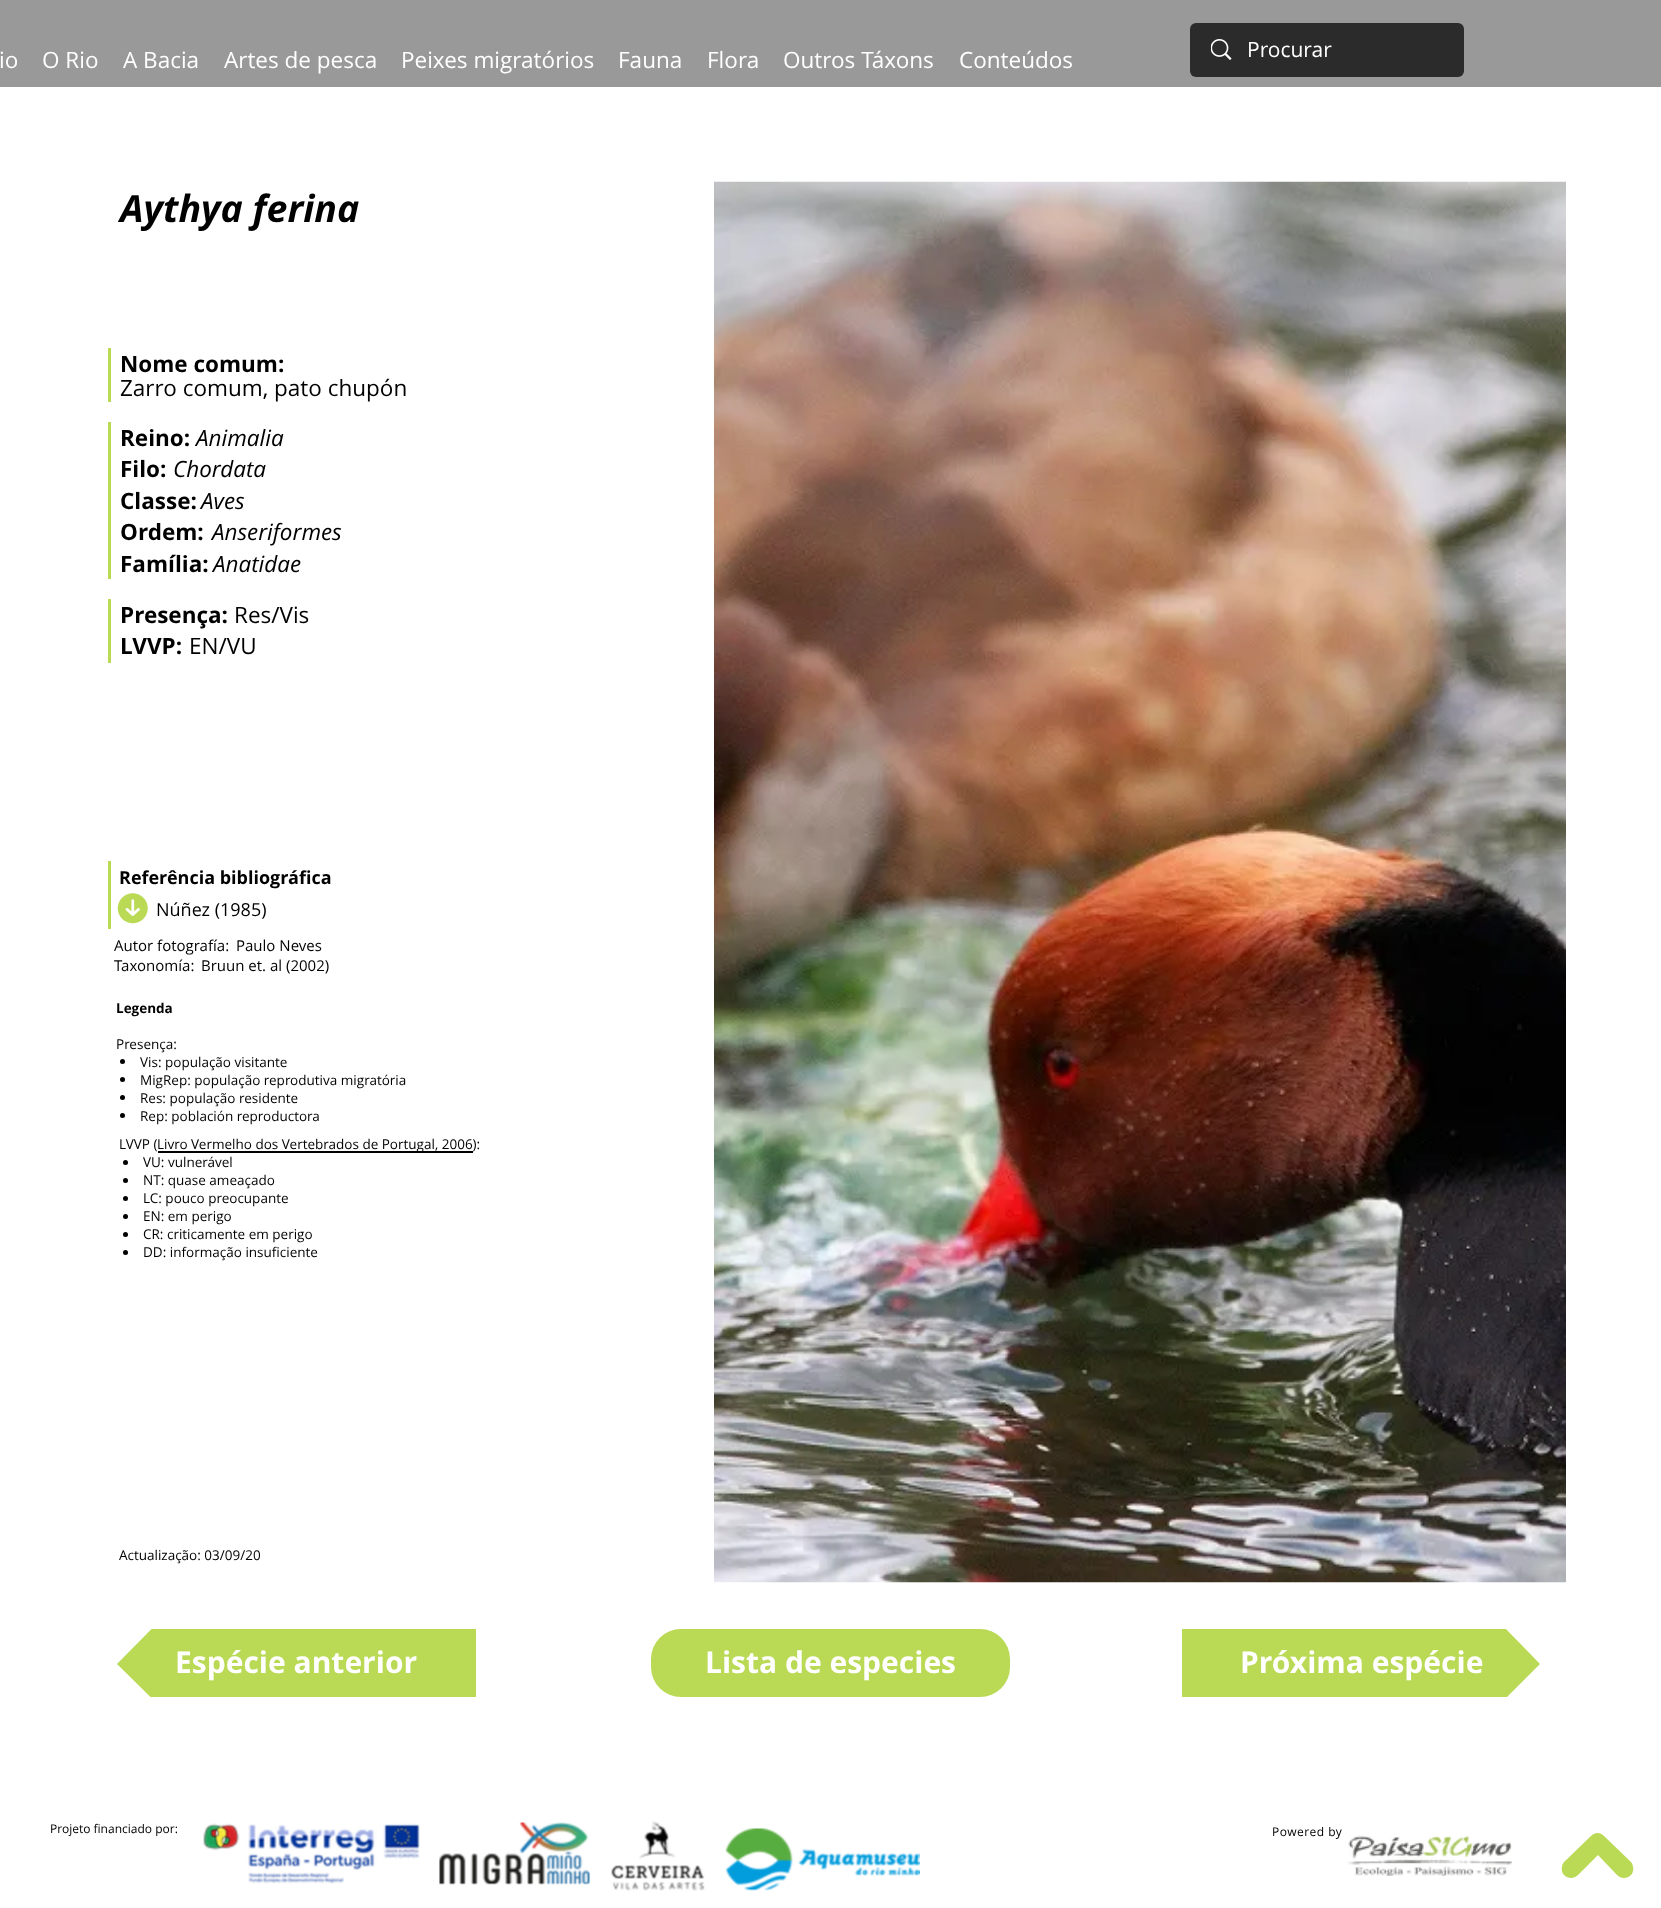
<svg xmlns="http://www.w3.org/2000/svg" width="1661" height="1908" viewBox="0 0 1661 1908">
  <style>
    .t1 { font: 22.5px Open Sans; fill: #fff; }
    .t2 { font: 21px Open Sans; fill: #fff; }
    .t3 { font: italic bold 37.5px Open Sans; fill: #000; }
    .t4 { font: bold 22.5px Open Sans; fill: #000; }
    .t5 { font: 22.5px Open Sans; fill: #000; }
    .t6 { font: italic 22.5px Open Sans; fill: #000; }
    .t7 { font: 15px Open Sans; fill: #000; }
    .t8 { font: bold 13.5px Open Sans; fill: #000; }
    .t9 { font: 13.5px Open Sans; fill: #000; }
    .t10 { font: bold 18px Open Sans; fill: #000; }
    .t11 { font: 18px Open Sans; fill: #000; }
    .t12 { font: bold 30px Open Sans; fill: #fff; }
    .t13 { font: 12px Open Sans; fill: #000; }
    .t14 { font: 12px Open Sans; letter-spacing: 0.5px; fill: #000; }
  </style>
  <defs>
    <clipPath id="clip1"><rect x="117" y="1629" width="359" height="68"/></clipPath>
    <clipPath id="clip2"><rect x="1182" y="1629" width="359" height="68"/></clipPath>
  </defs>
  <rect width="100%" height="100%" fill="#fff"/>
  <rect x="0" y="0" width="1661" height="87" fill="#999"/>
  <text x="-1" y="68" class="t1">io</text>
  <text x="42" y="68" class="t1">O Rio</text>
  <text x="123" y="68" class="t1">A Bacia</text>
  <text x="224" y="68" class="t1">Artes de pesca</text>
  <text x="401" y="68" class="t1">Peixes migratórios</text>
  <text x="618" y="68" class="t1">Fauna</text>
  <text x="707" y="68" class="t1">Flora</text>
  <text x="783" y="68" class="t1">Outros Táxons</text>
  <text x="959" y="68" class="t1">Conteúdos</text>
  <rect x="1190" y="23" width="274" height="54" rx="6" fill="#2b2b2b"/>
  <image x="1211" y="39" width="21" height="21" href="images/1.png"/>
  <text x="1247" y="57" class="t2">Procurar</text>
  <text x="120" y="222" class="t3">Aythya ferina</text>
  <rect x="108" y="348" width="3" height="54" fill="#bada55"/>
  <text x="120" y="372" class="t4">Nome comum:</text>
  <text x="120" y="396" class="t5">Zarro comum, pato chupón</text>
  <rect x="108" y="422" width="3" height="157" fill="#bada55"/>
  <text x="120" y="446" class="t4">Reino:</text>
  <text x="196" y="446" class="t6">Animalia</text>
  <text x="120" y="477" class="t4">Filo:</text>
  <text x="173" y="477" class="t6">Chordata</text>
  <text x="120" y="509" class="t4">Classe:</text>
  <text x="201" y="509" class="t6">Aves</text>
  <text x="212" y="540" class="t6">Anseriformes</text>
  <rect x="108" y="599" width="3" height="64" fill="#bada55"/>
  <text x="120" y="623" class="t4">Presença:</text>
  <text x="234" y="623" class="t5">Res/Vis</text>
  <text x="120" y="654" class="t4">LVVP:</text>
  <text x="189" y="654" class="t5">EN/VU</text>
  <text x="114" y="951" class="t7">Autor fotografía:</text>
  <text x="236" y="951" class="t7">Paulo Neves</text>
  <text x="114" y="971" class="t7">Taxonomía:</text>
  <text x="201" y="971" class="t7">Bruun et. al (2002)</text>
  <text x="116" y="1013" class="t8">Legenda</text>
  <text x="116" y="1049" class="t9">Presença:</text>
  <circle cx="122.5" cy="1061.5" r="2.5" fill="#000"/>
  <text x="140" y="1067" class="t9">Vis: população visitante</text>
  <circle cx="122.5" cy="1079.5" r="2.5" fill="#000"/>
  <text x="140" y="1085" class="t9">MigRep: população reprodutiva migratória</text>
  <circle cx="122.5" cy="1097.5" r="2.5" fill="#000"/>
  <text x="140" y="1103" class="t9">Res: população residente</text>
  <circle cx="122.5" cy="1115.5" r="2.5" fill="#000"/>
  <text x="140" y="1121" class="t9">Rep: población reproductora</text>
  <text x="119" y="1149" class="t9">LVVP (</text>
  <rect x="158" y="1151" width="315" height="2" fill="#000"/>
  <text x="157" y="1149" class="t9">Livro Vermelho dos Vertebrados de Portugal, 2006):</text>
  <circle cx="125.5" cy="1162.5" r="2.5" fill="#000"/>
  <text x="143" y="1167" class="t9">VU: vulnerável</text>
  <circle cx="125.5" cy="1180.5" r="2.5" fill="#000"/>
  <text x="143" y="1185" class="t9">NT: quase ameaçado</text>
  <circle cx="125.5" cy="1198.5" r="2.5" fill="#000"/>
  <text x="143" y="1203" class="t9">LC: pouco preocupante</text>
  <circle cx="125.5" cy="1216.5" r="2.5" fill="#000"/>
  <text x="143" y="1221" class="t9">EN: em perigo</text>
  <circle cx="125.5" cy="1234.5" r="2.5" fill="#000"/>
  <text x="143" y="1239" class="t9">CR: criticamente em perigo</text>
  <circle cx="125.5" cy="1252.5" r="2.5" fill="#000"/>
  <text x="143" y="1257" class="t9">DD: informação insuficiente</text>
  <text x="119" y="1560" class="t9">Actualização: 03/09/20</text>
  <image x="714" y="181" width="852" height="1402" href="images/2.png"/>
  <text x="120" y="540" class="t4">Ordem:</text>
  <text x="120" y="572" class="t4">Família:</text>
  <text x="213" y="572" class="t6">Anatidae</text>
  <rect x="108" y="861" width="3" height="68" fill="#bada55"/>
  <text x="119" y="884" class="t10">Referência bibliográfica</text>
  <image x="117" y="893" width="31" height="31" href="images/3.png"/>
  <text x="156" y="916" class="t11">Núñez (1985)</text>
  <g clip-path="url(#clip1)">
    <path d="M192 1664H117L192 1588Z" fill="#bada55"/>
  </g>
  <rect x="192" y="1629" width="284" height="68" fill="#bada55"/>
  <g clip-path="url(#clip1)">
    <path d="M117 1664H192V1738Z" fill="#bada55"/>
  </g>
  <text x="175" y="1673" class="t12">Espécie anterior</text>
  <rect x="651" y="1629" width="359" height="68" rx="30" fill="#bada55"/>
  <text x="705" y="1673" class="t12">Lista de especies</text>
  <rect x="1182" y="1629" width="284" height="68" fill="#bada55"/>
  <g clip-path="url(#clip2)">
    <path d="M1540 1664H1466V1588Z" fill="#bada55"/>
    <path d="M1466 1664H1540L1466 1738Z" fill="#bada55"/>
  </g>
  <text x="1240" y="1673" class="t12">Próxima espécie</text>
  <text x="50" y="1833" class="t13">Projeto financiado por:</text>
  <image x="203" y="1823" width="217" height="61" href="images/4.png"/>
  <image x="439" y="1822" width="151" height="63" href="images/5.png"/>
  <image x="611" y="1821" width="94" height="70" href="images/6.png"/>
  <image x="725" y="1828" width="195" height="63" href="images/7.png"/>
  <text x="1272" y="1836" class="t14">Powered by</text>
  <image x="1347" y="1835" width="165" height="41" href="images/8.png"/>
  <path d="M1564 1875C1568 1879 1574 1879 1578 1875L1598 1855L1617 1875C1621 1879 1627 1879 1631 1875C1634 1872 1634 1866 1631 1862L1604 1836C1600 1832 1595 1832 1591 1836L1564 1862C1561 1866 1561 1872 1564 1875Z" fill="#bada55"/>
</svg>
